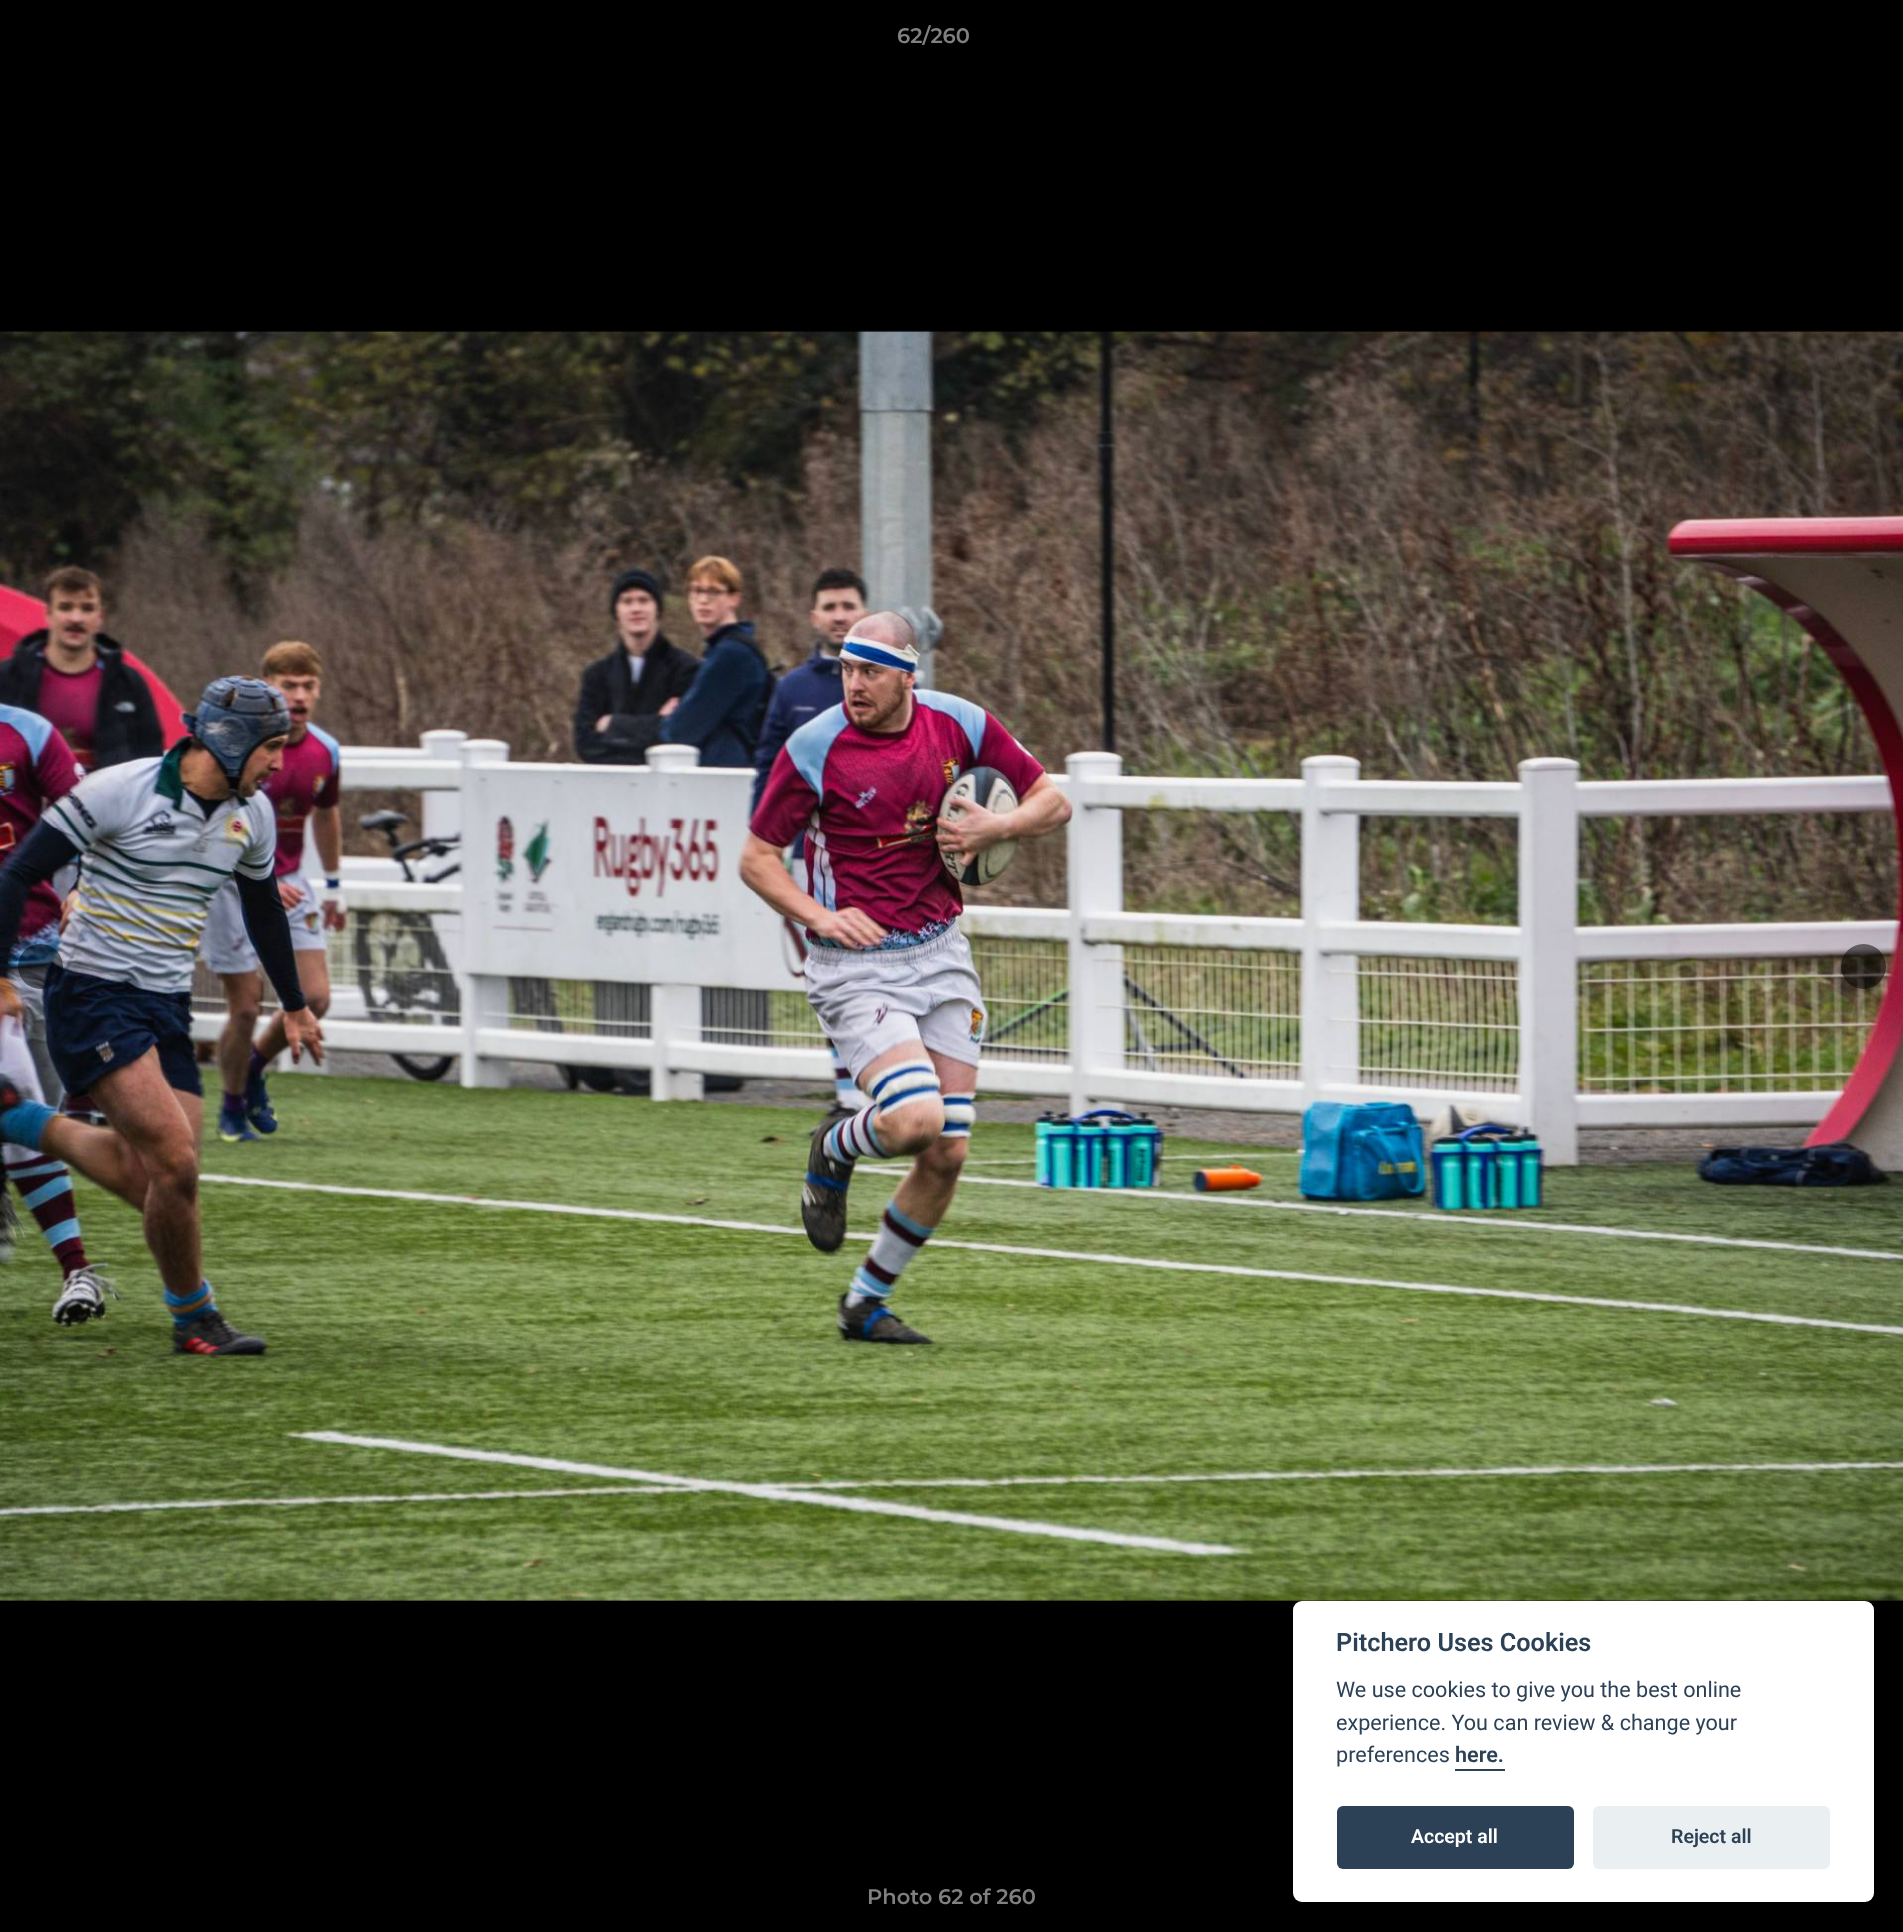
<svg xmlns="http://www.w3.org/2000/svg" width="1903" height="1932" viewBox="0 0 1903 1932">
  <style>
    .t1 { font: 600 21px Montserrat; fill: #808080; }
    .t2 { font: 600 25.25px Roboto; fill: #2d4156; }
    .t3 { font: 21.6px Roboto; fill: #2d4156; }
    .t4 { font: 600 21.6px Roboto; fill: #2d4156; }
    .t5 { font: 600 19.5px Roboto; fill: #fff; }
    .t6 { font: 600 19.5px Roboto; fill: #2d4156; }
  </style>
  <rect width="100%" height="100%" fill="#000"/>
  <text x="897" y="43" class="t1">62/260</text>
  <image x="0" y="330" width="1903" height="1271" href="images/1.png"/>
  <circle cx="40.5" cy="966.5" r="22.5" fill="#00000080"/>
  <circle cx="1863.5" cy="966.5" r="22.5" fill="#00000080"/>
  <text x="867" y="1904" class="t1">Photo 62 of 260</text>
  <rect x="1293" y="1601" width="581" height="301" rx="9" fill="#fff"/>
  <text x="1336" y="1651" class="t2">Pitchero Uses Cookies</text>
  <text x="1336" y="1697" class="t3">We use cookies to give you the best online</text>
  <text x="1336" y="1730" class="t3">experience. You can review &amp; change your</text>
  <text x="1336" y="1762" class="t3">preferences</text>
  <text x="1455" y="1762" class="t4">here.</text>
  <rect x="1455" y="1769" width="50" height="2" fill="#2d4156"/>
  <rect x="1337" y="1806" width="237" height="63" rx="6" fill="#2d4156"/>
  <text x="1411" y="1843" class="t5">Accept all</text>
  <rect x="1593" y="1806" width="237" height="63" rx="6" fill="#eaeff2"/>
  <text x="1671" y="1843" class="t6">Reject all</text>
</svg>
